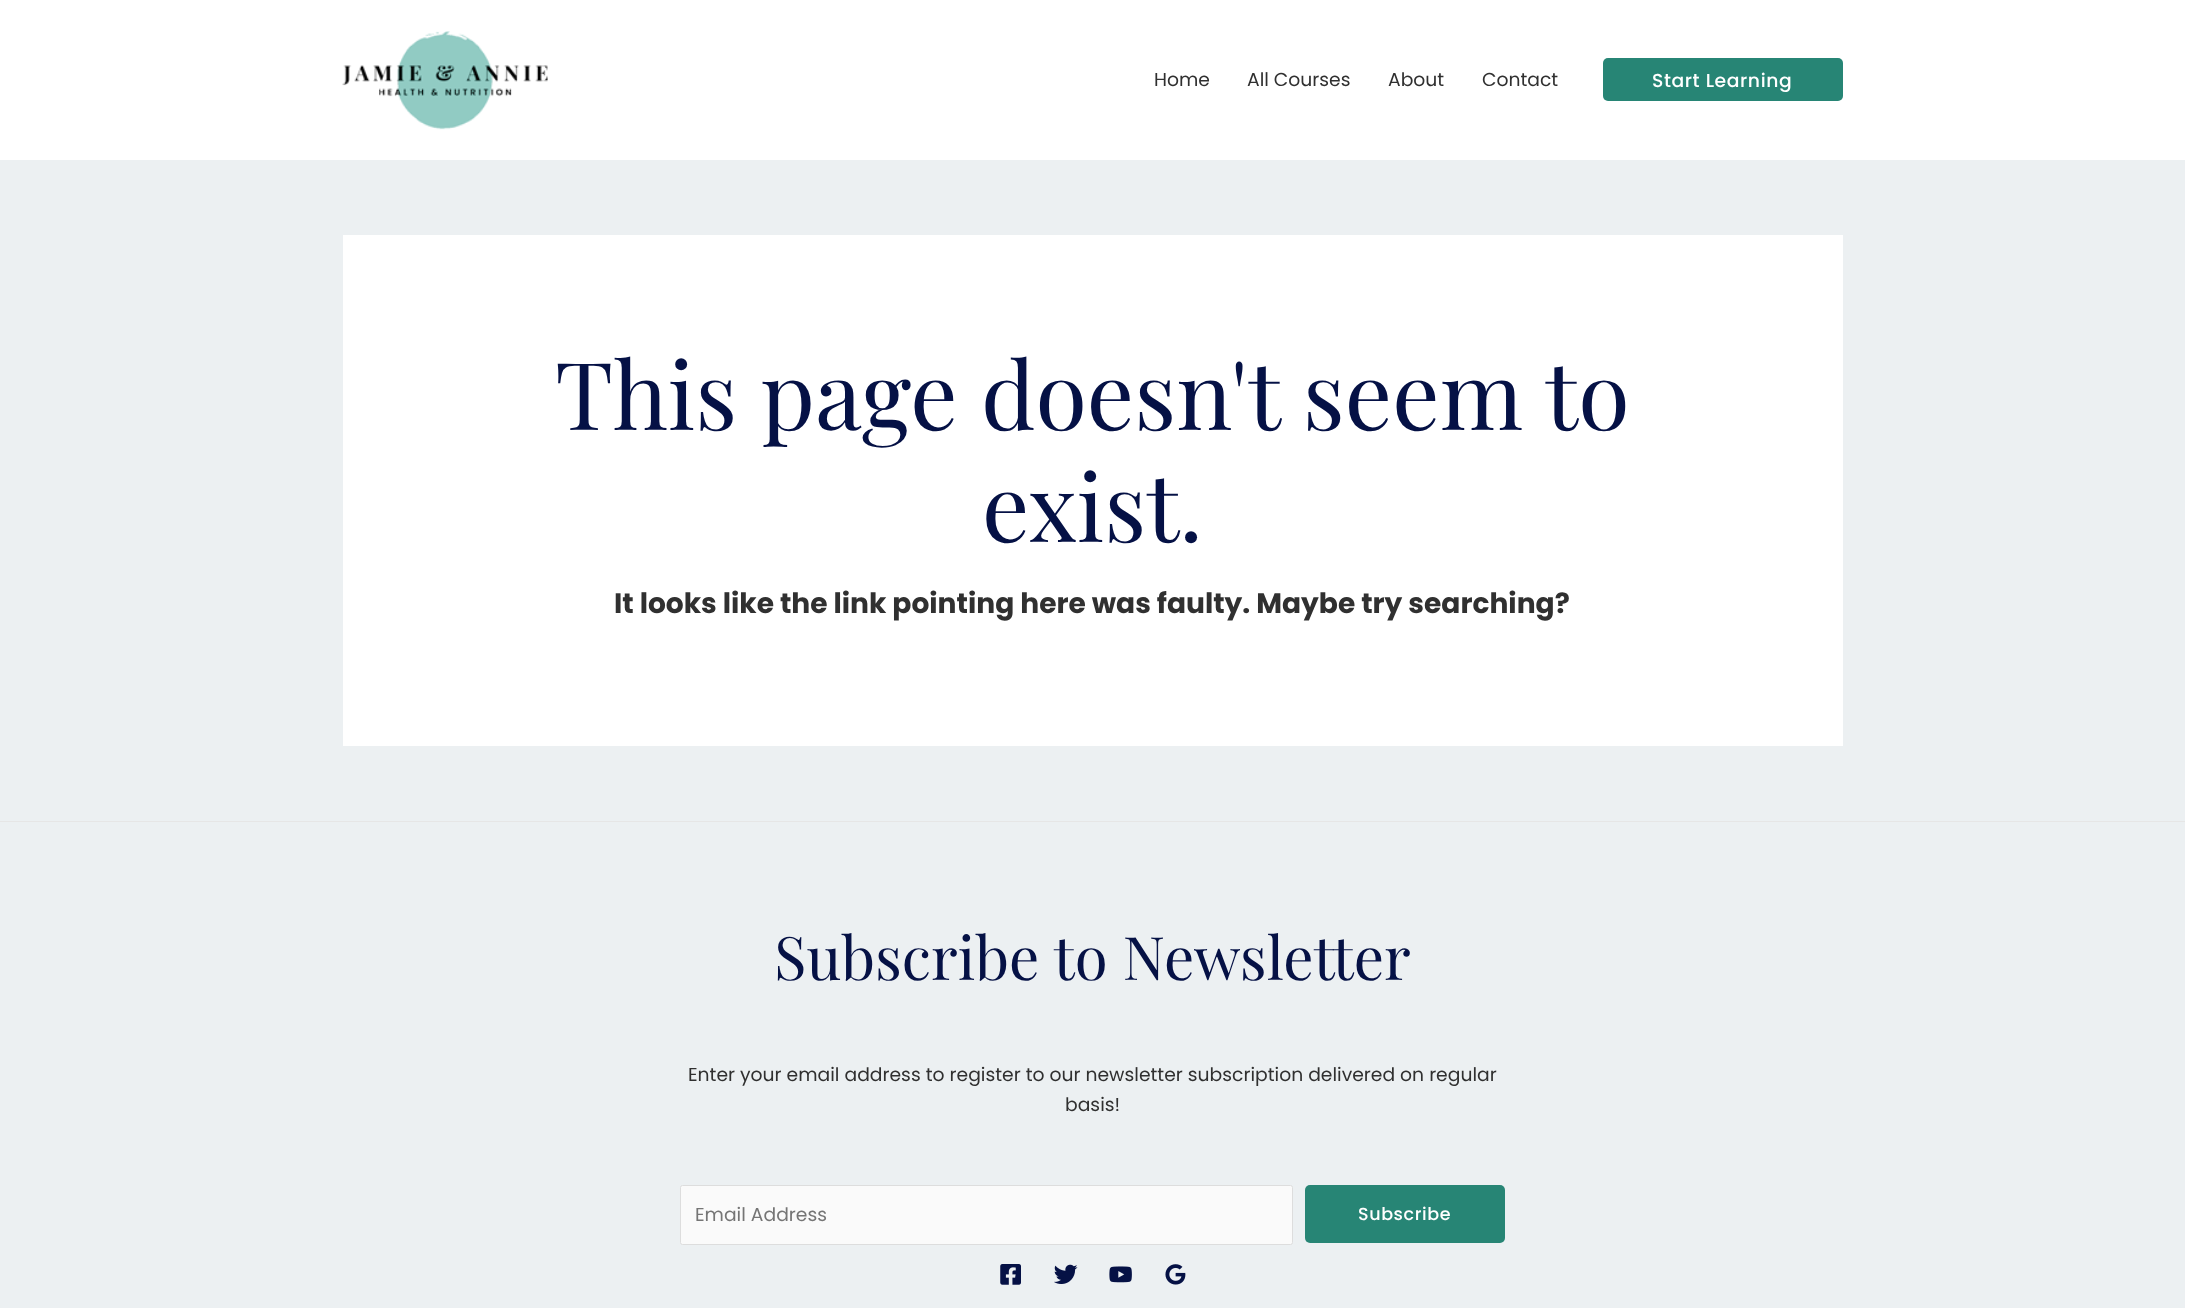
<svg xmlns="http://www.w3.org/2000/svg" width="2185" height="1308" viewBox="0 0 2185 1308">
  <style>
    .t1 { font: 18.75px Poppins; fill: #303030; }
    .t2 { font: 500 18.75px Poppins; letter-spacing: 0.6px; fill: #fff; }
    .t3 { font: 93.75px Playfair Display; fill: #051145; }
    .t4 { font: bold 28.1px Poppins; fill: #303030; }
    .t5 { font: 60px Playfair Display; fill: #051145; }
    .t6 { font: 18.75px Poppins; fill: #757575; }
    .t7 { font: 500 17.5px Poppins; letter-spacing: 0.6px; fill: #fff; }
  </style>
  <rect width="100%" height="100%" fill="#ecf0f2"/>
  <rect x="0" y="0" width="2185" height="160" fill="#fff"/>
  <image x="342" y="31" width="206" height="99" href="images/1.png"/>
  <text x="1154" y="86" class="t1">Home</text>
  <text x="1247" y="86" class="t1">All Courses</text>
  <text x="1388" y="86" class="t1">About</text>
  <text x="1482" y="86" class="t1">Contact</text>
  <rect x="1603" y="58" width="240" height="43" rx="5" fill="#278575"/>
  <text x="1652" y="87" class="t2">Start Learning</text>
  <rect x="343" y="235" width="1500" height="511" fill="#fff"/>
  <text x="555" y="430" class="t3">This page doesn't seem to</text>
  <text x="982" y="542" class="t3">exist.</text>
  <text x="614" y="613" class="t4">It looks like the link pointing here was faulty. Maybe try searching?</text>
  <rect x="0" y="821" width="2185" height="1" fill="#e6e6e6"/>
  <text x="774" y="980" class="t5">Subscribe to Newsletter</text>
  <text x="688" y="1081" class="t1">Enter your email address to register to our newsletter subscription delivered on regular</text>
  <text x="1065" y="1111" class="t1">basis!</text>
  <rect x="680.5" y="1185.5" width="612" height="59" rx="2" fill="#fafafa" stroke="#ddd"/>
  <text x="695" y="1221" class="t6">Email Address</text>
  <rect x="1305" y="1185" width="200" height="58" rx="5" fill="#278575"/>
  <text x="1358" y="1220" class="t7">Subscribe</text>
  <image x="1000" y="1264" width="21" height="21" href="images/2.png"/>
  <image x="1054" y="1264" width="24" height="20" href="images/3.png"/>
  <image x="1109" y="1266" width="23" height="17" href="images/4.png"/>
  <image x="1165" y="1264" width="21" height="21" href="images/5.png"/>
</svg>
